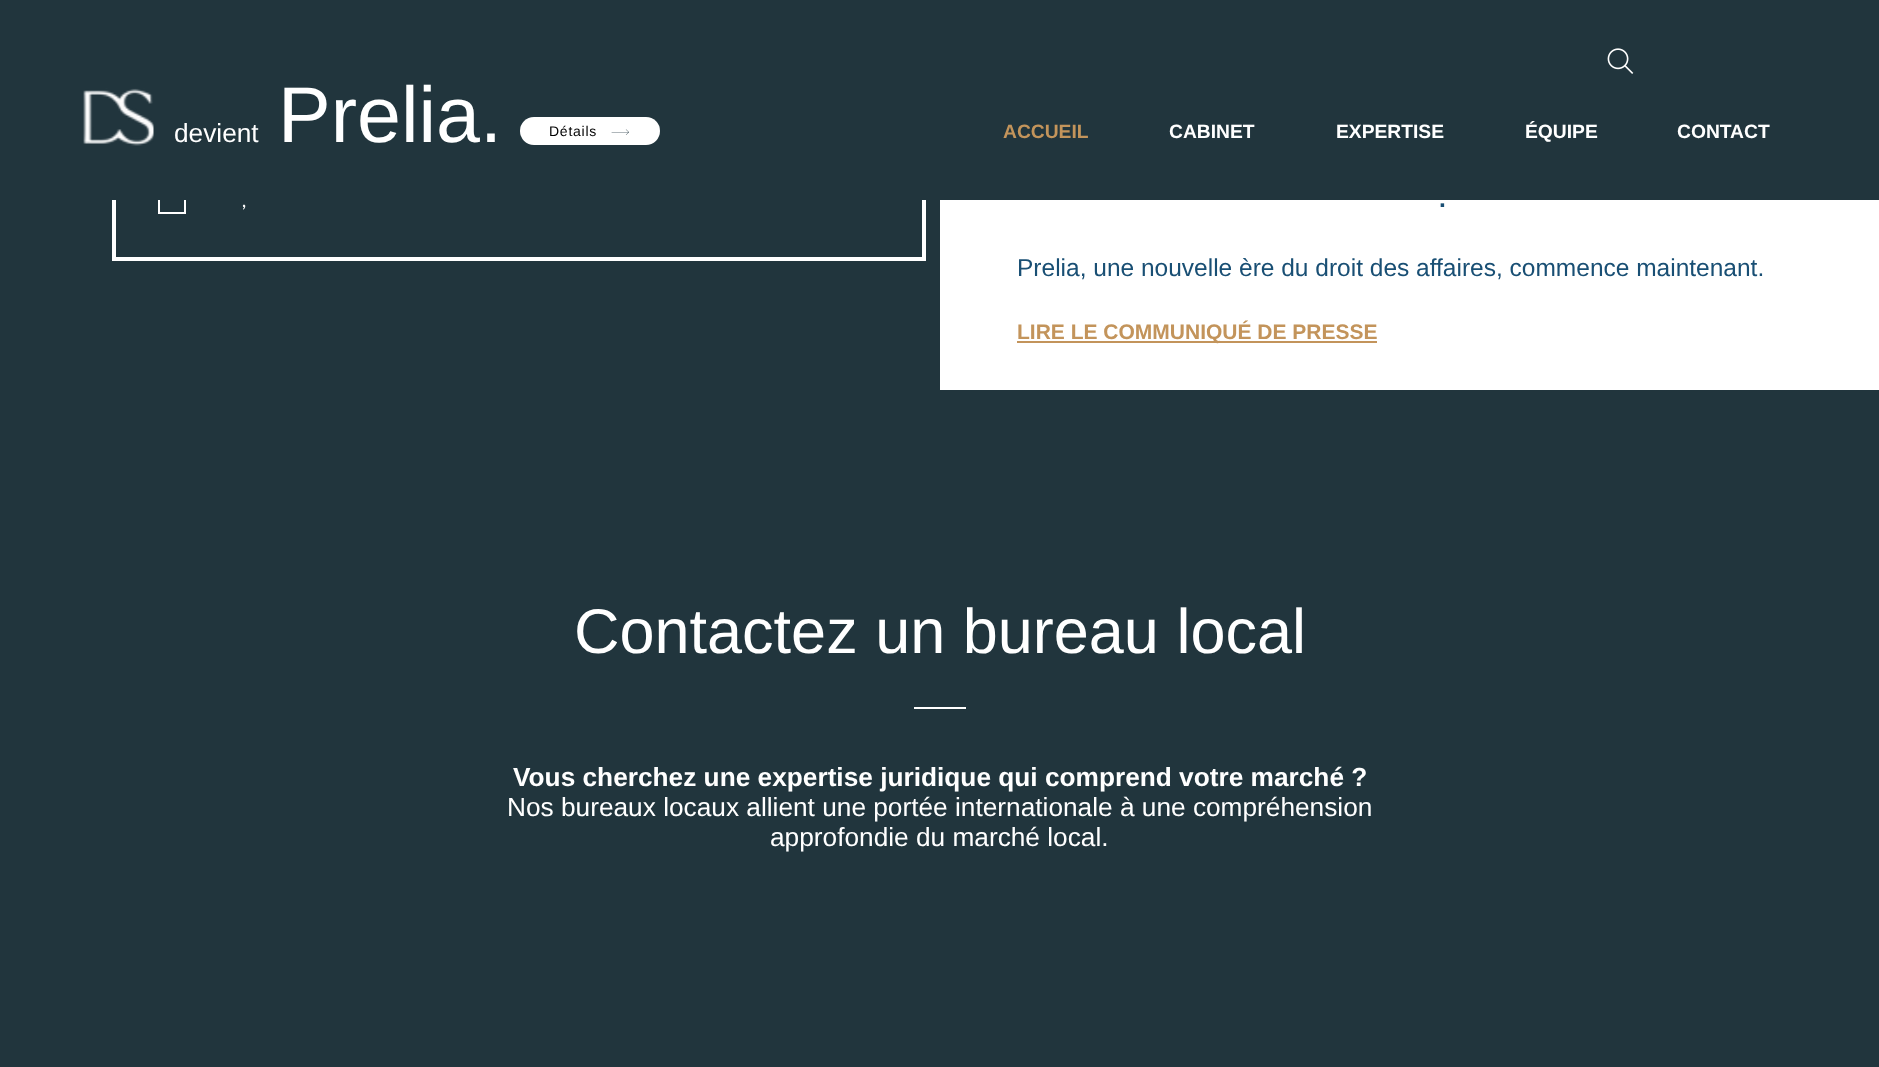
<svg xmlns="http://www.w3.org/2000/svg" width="1879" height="1067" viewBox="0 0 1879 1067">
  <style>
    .t1 { font: 26.25px Liberation Sans; fill: #fff; }
    .t2 { font: 79px Liberation Sans; fill: #fff; }
    .t3 { font: 14px Liberation Sans; letter-spacing: 0.75px; fill: #000; }
    .t4 { font: bold 19.25px Liberation Sans; fill: #c3945b; }
    .t5 { font: bold 19.25px Liberation Sans; fill: #fff; }
    .t6 { font: 19.25px Lato; fill: #fff; }
    .t7 { font: bold 24.5px Liberation Sans; fill: #194f74; }
    .t8 { font: 24.5px Liberation Sans; fill: #194f74; }
    .t9 { font: bold 21px Liberation Sans; fill: #c3945b; }
    .t10 { font: 63px Liberation Sans; fill: #fff; }
    .t11 { font: bold 26.25px Liberation Sans; fill: #fff; }
  </style>
  <rect width="100%" height="100%" fill="#21353d"/>
  <rect x="114" y="28" width="810" height="231" fill="none" stroke="#fff" stroke-width="4"/>
  <rect x="159" y="187" width="26" height="26" fill="none" stroke="#fff" stroke-width="2"/>
  <rect x="112" y="26" width="814" height="174" fill="#21353d"/>
  <image x="1607" y="48" width="27" height="26" href="images/1.png"/>
  <image x="83" y="88" width="71" height="58" href="images/2.png"/>
  <text x="174" y="142" class="t1">devient</text>
  <text x="278" y="142" class="t2">Prelia.</text>
  <rect x="520" y="117" width="140" height="28" rx="14" fill="#fff"/>
  <text x="549" y="136" class="t3">Détails</text>
  <image x="611" y="129" width="18" height="6" href="images/3.png"/>
  <text x="1003" y="138" class="t4">ACCUEIL</text>
  <text x="1169" y="138" class="t5">CABINET</text>
  <text x="1336" y="138" class="t5">EXPERTISE</text>
  <text x="1525" y="138" class="t5">ÉQUIPE</text>
  <text x="1677" y="138" class="t5">CONTACT</text>
  <text x="242" y="207" class="t6">,</text>
  <rect x="940" y="200" width="939" height="190" fill="#fff"/>
  <text x="1439" y="207" class="t7">.</text>
  <text x="1017" y="276" class="t8">Prelia, une nouvelle ère du droit des affaires, commence maintenant.</text>
  <rect x="1017" y="341" width="360" height="2" fill="#c3945b"/>
  <text x="1017" y="339" class="t9">LIRE LE COMMUNIQUÉ DE PRESSE</text>
  <text x="574" y="653" class="t10">Contactez un bureau local</text>
  <rect x="914" y="707" width="52" height="2" fill="#fff"/>
  <text x="513" y="786" class="t11">Vous cherchez une expertise juridique qui comprend votre marché ?</text>
  <text x="507" y="816" class="t1">Nos bureaux locaux allient une portée internationale à une compréhension</text>
  <text x="770" y="846" class="t1">approfondie du marché local.</text>
</svg>
